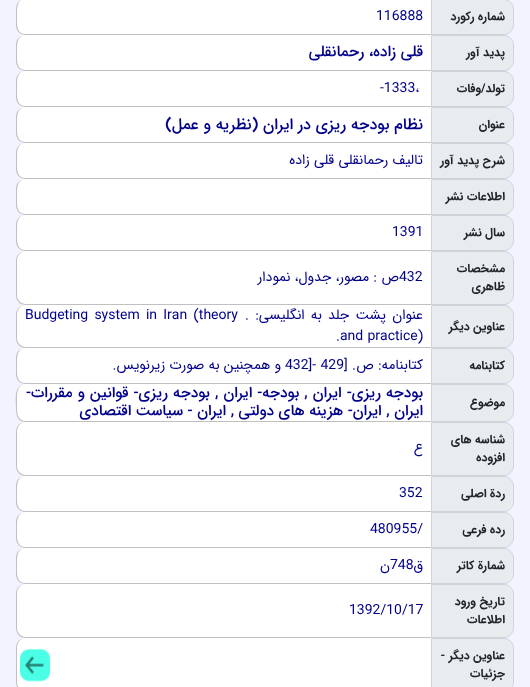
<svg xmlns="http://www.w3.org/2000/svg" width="530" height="687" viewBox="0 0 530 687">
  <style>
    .t1 { font: bold 12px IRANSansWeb; direction: rtl; fill: #212529; }
    .t2 { font: 14px IRANSansWeb; fill: #00008b; }
    .t3 { font: 500 15.5px IRANSansWeb; direction: rtl; fill: #00008b; }
    .t4 { font: 500 15.9px IRANSansWeb; direction: rtl; fill: #00008b; }
    .t5 { font: 14px IRANSansWeb; direction: rtl; fill: #00008b; }
    .t6 { font: 500 15.25px IRANSansWeb; direction: rtl; fill: #00008b; }
  </style>
  <rect width="100%" height="100%" fill="#f3f3ff"/>
  <path d="M431.5-.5H504C509-.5 513.5 4 513.5 9V25C513.5 30 509 34.5 504 34.5H431.5Z" fill="#e9ecef" stroke="#ced4da"/>
  <text x="505" y="20" class="t1">شماره ركورد</text>
  <path d="M26-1H431V35H26C20.5 35 16 30.5 16 25V9C16 3.5 20.5-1 26-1Z" fill="#fff"/>
  <path d="M26-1H431V35H26C20 35 16 31 16 25V9C16 3 20-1 26-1ZM26-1H431V34H26C16 34 17 24 17 17C17 10 16-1 26-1Z" fill="#c0c0c0" fill-rule="evenodd"/>
  <text x="376" y="20" class="t2">116888</text>
  <path d="M431.5 35.5H504C509 35.5 513.5 40 513.5 45V61C513.5 66 509 70.5 504 70.5H431.5Z" fill="#e9ecef" stroke="#ced4da"/>
  <text x="505" y="56" class="t1">پديد آور</text>
  <path d="M26 35H431V71H26C20.5 71 16 66.5 16 61V45C16 39.5 20.5 35 26 35Z" fill="#fff"/>
  <path d="M26 35H431V71H26C20 71 16 67 16 61V45C16 39 20 35 26 35ZM26 35H431V70H26C16 70 17 60 17 53C17 46 16 35 26 35Z" fill="#c0c0c0" fill-rule="evenodd"/>
  <text x="423" y="56" class="t3">قلي زاده، رحمانقلي</text>
  <path d="M431.5 71.5H504C509 71.5 513.5 76 513.5 81V97C513.5 102 509 106.5 504 106.5H431.5Z" fill="#e9ecef" stroke="#ced4da"/>
  <text x="505" y="92" class="t1">تولد/وفات</text>
  <path d="M26 71H431V107H26C20.5 107 16 102.5 16 97V81C16 75.5 20.5 71 26 71Z" fill="#fff"/>
  <path d="M26 71H431V107H26C20 107 16 103 16 97V81C16 75 20 71 26 71ZM26 71H431V106H26C16 106 17 96 17 89C17 82 16 71 26 71Z" fill="#c0c0c0" fill-rule="evenodd"/>
  <text x="380" y="92" class="t2">-1333،</text>
  <path d="M431.5 107.5H504C509 107.5 513.5 112 513.5 117V133C513.5 138 509 142.5 504 142.5H431.5Z" fill="#e9ecef" stroke="#ced4da"/>
  <text x="505" y="128" class="t1">عنوان</text>
  <path d="M26 107H431V143H26C20.5 143 16 138.5 16 133V117C16 111.5 20.5 107 26 107Z" fill="#fff"/>
  <path d="M26 107H431V143H26C20 143 16 139 16 133V117C16 111 20 107 26 107ZM26 107H431V142H26C16 142 17 132 17 125C17 118 16 107 26 107Z" fill="#c0c0c0" fill-rule="evenodd"/>
  <text x="423" y="129" class="t4">نظام بودجه ريزي در ايران (نظريه و عمل)</text>
  <path d="M431.5 143.5H504C509 143.5 513.5 148 513.5 153V169C513.5 174 509 178.5 504 178.5H431.5Z" fill="#e9ecef" stroke="#ced4da"/>
  <text x="505" y="164" class="t1">شرح پديد آور</text>
  <path d="M26 143H431V179H26C20.5 179 16 174.5 16 169V153C16 147.5 20.5 143 26 143Z" fill="#fff"/>
  <path d="M26 143H431V179H26C20 179 16 175 16 169V153C16 147 20 143 26 143ZM26 143H431V178H26C16 178 17 168 17 161C17 154 16 143 26 143Z" fill="#c0c0c0" fill-rule="evenodd"/>
  <text x="423" y="164" class="t5">تاليف رحمانقلي قلي زاده</text>
  <path d="M431.5 179.5H504C509 179.5 513.5 184 513.5 189V205C513.5 210 509 214.5 504 214.5H431.5Z" fill="#e9ecef" stroke="#ced4da"/>
  <text x="505" y="200" class="t1">اطلاعات نشر</text>
  <path d="M26 179H431V215H26C20.5 215 16 210.5 16 205V189C16 183.5 20.5 179 26 179Z" fill="#fff"/>
  <path d="M26 179H431V215H26C20 215 16 211 16 205V189C16 183 20 179 26 179ZM26 179H431V214H26C16 214 17 204 17 197C17 190 16 179 26 179Z" fill="#c0c0c0" fill-rule="evenodd"/>
  <path d="M431.5 215.5H504C509 215.5 513.5 220 513.5 225V241C513.5 246 509 250.5 504 250.5H431.5Z" fill="#e9ecef" stroke="#ced4da"/>
  <text x="505" y="236" class="t1">سال نشر</text>
  <path d="M26 215H431V251H26C20.5 251 16 246.5 16 241V225C16 219.5 20.5 215 26 215Z" fill="#fff"/>
  <path d="M26 215H431V251H26C20 251 16 247 16 241V225C16 219 20 215 26 215ZM26 215H431V250H26C16 250 17 240 17 233C17 226 16 215 26 215Z" fill="#c0c0c0" fill-rule="evenodd"/>
  <text x="392" y="236" class="t2">1391</text>
  <path d="M431.5 251.5H504C509 251.5 513.5 256 513.5 261V295C513.5 300 509 304.5 504 304.5H431.5Z" fill="#e9ecef" stroke="#ced4da"/>
  <text x="505" y="272" class="t1">مشخصات</text>
  <text x="505" y="290" class="t1">ظاهري</text>
  <path d="M26 251H431V305H26C20.5 305 16 300.5 16 295V261C16 255.5 20.5 251 26 251Z" fill="#fff"/>
  <path d="M26 251H431V305H26C20 305 16 301 16 295V261C16 255 20 251 26 251ZM26 251H431V304H26C21 304 17 300 17 295V261C17 255 21 251 26 251Z" fill="#c0c0c0" fill-rule="evenodd"/>
  <text x="399" y="281" class="t2">432</text>
  <text x="399" y="281" class="t5">ص : مصور، جدول، نمودار</text>
  <path d="M431.5 305.5H504C509 305.5 513.5 310 513.5 315V338C513.5 343 509 347.5 504 347.5H431.5Z" fill="#e9ecef" stroke="#ced4da"/>
  <text x="505" y="330" class="t1">عناوين ديگر</text>
  <path d="M26 305H431V348H26C20.5 348 16 343.5 16 338V315C16 309.5 20.5 305 26 305Z" fill="#fff"/>
  <path d="M26 305H431V348H26C20 348 16 344 16 338V315C16 309 20 305 26 305ZM26 305H431V347H26C21 347 17 343 17 338V315C17 309 21 305 26 305Z" fill="#c0c0c0" fill-rule="evenodd"/>
  <text x="423" y="319" word-spacing="2" class="t5">عنوان پشت جلد به انگليسي: .</text>
  <text x="25" y="319" word-spacing="2" class="t2">Budgeting system in Iran (theory</text>
  <text x="336" y="340" class="t2">.and practice)</text>
  <path d="M431.5 348.5H504C509 348.5 513.5 353 513.5 358V374C513.5 379 509 383.5 504 383.5H431.5Z" fill="#e9ecef" stroke="#ced4da"/>
  <text x="505" y="369" class="t1">كتابنامه</text>
  <path d="M26 348H431V384H26C20.5 384 16 379.5 16 374V358C16 352.5 20.5 348 26 348Z" fill="#fff"/>
  <path d="M26 348H431V384H26C20 384 16 380 16 374V358C16 352 20 348 26 348ZM26 348H431V383H26C16 383 17 373 17 366C17 359 16 348 26 348Z" fill="#c0c0c0" fill-rule="evenodd"/>
  <text x="423" y="369" class="t5">كتابنامه: ص. [</text>
  <text x="285" y="369" class="t2">432]- 429</text>
  <text x="281" y="369" class="t5">و همچنين به صورت زيرنويس.</text>
  <path d="M431.5 384.5H504C509 384.5 513.5 389 513.5 394V412C513.5 417 509 421.5 504 421.5H431.5Z" fill="#e9ecef" stroke="#ced4da"/>
  <text x="505" y="406" class="t1">موضوع</text>
  <path d="M26 384H431V422H26C20.5 422 16 417.5 16 412V394C16 388.5 20.5 384 26 384Z" fill="#fff"/>
  <path d="M26 384H431V422H26C18 422 16 416 16 409C16 401 13 384 26 384ZM26 384H431V421H24C16 419 17 410 17 403C17 396 16 384 26 384Z" fill="#c0c0c0" fill-rule="evenodd"/>
  <text x="423" y="397" word-spacing="0.5" class="t6">بودجه ريزي- ايران , بودجه- ايران , بودجه ريزي- قوانين و مقررات-</text>
  <text x="423" y="415" class="t6">ايران , ايران- هزينه هاي دولتي , ايران - سياست اقتصادي</text>
  <path d="M431.5 422.5H504C509 422.5 513.5 427 513.5 432V466C513.5 471 509 475.5 504 475.5H431.5Z" fill="#e9ecef" stroke="#ced4da"/>
  <text x="505" y="443" class="t1">شناسه هاي</text>
  <text x="505" y="461" class="t1">افزوده</text>
  <path d="M26 422H431V476H26C20.5 476 16 471.5 16 466V432C16 426.5 20.5 422 26 422Z" fill="#fff"/>
  <path d="M26 422H431V476H26C20 476 16 472 16 466V432C16 426 20 422 26 422ZM26 422H431V475H26C21 475 17 471 17 466V432C17 426 21 422 26 422Z" fill="#c0c0c0" fill-rule="evenodd"/>
  <text x="423" y="452" class="t5">ع</text>
  <path d="M431.5 476.5H504C509 476.5 513.5 481 513.5 486V502C513.5 507 509 511.5 504 511.5H431.5Z" fill="#e9ecef" stroke="#ced4da"/>
  <text x="505" y="497" class="t1">ردة اصلي</text>
  <path d="M26 476H431V512H26C20.5 512 16 507.5 16 502V486C16 480.5 20.5 476 26 476Z" fill="#fff"/>
  <path d="M26 476H431V512H26C20 512 16 508 16 502V486C16 480 20 476 26 476ZM26 476H431V511H26C16 511 17 501 17 494C17 487 16 476 26 476Z" fill="#c0c0c0" fill-rule="evenodd"/>
  <text x="399" y="497" class="t2">352</text>
  <path d="M431.5 512.5H504C509 512.5 513.5 517 513.5 522V538C513.5 543 509 547.5 504 547.5H431.5Z" fill="#e9ecef" stroke="#ced4da"/>
  <text x="505" y="533" class="t1">رده فرعي</text>
  <path d="M26 512H431V548H26C20.5 548 16 543.5 16 538V522C16 516.5 20.5 512 26 512Z" fill="#fff"/>
  <path d="M26 512H431V548H26C20 548 16 544 16 538V522C16 516 20 512 26 512ZM26 512H431V547H26C16 547 17 537 17 530C17 523 16 512 26 512Z" fill="#c0c0c0" fill-rule="evenodd"/>
  <text x="370" y="533" class="t2">480955/</text>
  <path d="M431.5 548.5H504C509 548.5 513.5 553 513.5 558V574C513.5 579 509 583.5 504 583.5H431.5Z" fill="#e9ecef" stroke="#ced4da"/>
  <text x="505" y="569" class="t1">شمارة كاتر</text>
  <path d="M26 548H431V584H26C20.5 584 16 579.5 16 574V558C16 552.5 20.5 548 26 548Z" fill="#fff"/>
  <path d="M26 548H431V584H26C20 584 16 580 16 574V558C16 552 20 548 26 548ZM26 548H431V583H26C16 583 17 573 17 566C17 559 16 548 26 548Z" fill="#c0c0c0" fill-rule="evenodd"/>
  <text x="423" y="569" class="t5">ق</text>
  <text x="390" y="569" class="t2">748</text>
  <text x="390" y="569" class="t5">ن</text>
  <path d="M431.5 584.5H504C509 584.5 513.5 589 513.5 594V628C513.5 633 509 637.5 504 637.5H431.5Z" fill="#e9ecef" stroke="#ced4da"/>
  <text x="505" y="605" class="t1">تاريخ ورود</text>
  <text x="505" y="623" class="t1">اطلاعات</text>
  <path d="M26 584H431V638H26C20.5 638 16 633.5 16 628V594C16 588.5 20.5 584 26 584Z" fill="#fff"/>
  <path d="M26 584H431V638H26C20 638 16 634 16 628V594C16 588 20 584 26 584ZM26 584H431V637H26C21 637 17 633 17 628V594C17 588 21 584 26 584Z" fill="#c0c0c0" fill-rule="evenodd"/>
  <text x="349" y="614" class="t2">1392/10/17</text>
  <path d="M431.5 638.5H504C509 638.5 513.5 643 513.5 648V682C513.5 687 509 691.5 504 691.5H431.5Z" fill="#e9ecef" stroke="#ced4da"/>
  <text x="505" y="659" class="t1">عناوين ديگر -</text>
  <text x="505" y="677" class="t1">جزئيات</text>
  <path d="M26 638H431V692H26C20.5 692 16 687.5 16 682V648C16 642.5 20.5 638 26 638Z" fill="#fff"/>
  <path d="M26 638H431V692H26C20 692 16 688 16 682V648C16 642 20 638 26 638ZM26 638H431V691H26C21 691 17 687 17 682V648C17 642 21 638 26 638Z" fill="#c0c0c0" fill-rule="evenodd"/>
  <image x="20" y="649" width="30" height="33" href="images/1.png"/>
</svg>
